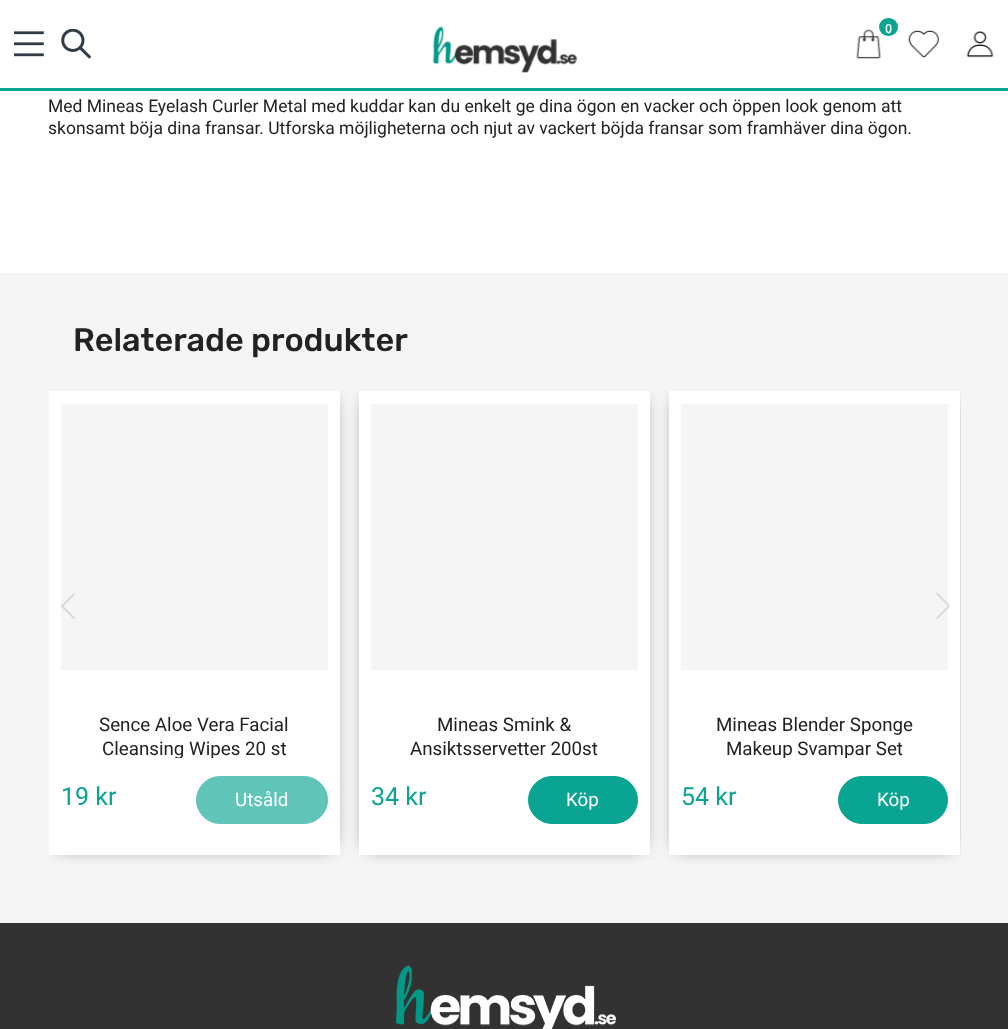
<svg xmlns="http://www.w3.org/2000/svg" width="1008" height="1029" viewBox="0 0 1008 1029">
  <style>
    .t1 { font: bold 12px Roboto; fill: #fff; }
    .t2 { font: 17.5px Roboto; fill: #222; }
    .t3 { font: 500 32.5px Rubik; fill: #222; }
    .t4 { font: 18.75px Roboto; fill: #222; }
    .t5 { font: 25px Roboto; fill: #0aa493; }
    .t6 { font: 18.75px Roboto; fill: #fff; }
  </style>
  <defs>
    <clipPath id="clip1"><rect x="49" y="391" width="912" height="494"/></clipPath>
    <clipPath id="clip2"><rect x="61" y="714" width="267" height="44"/></clipPath>
    <clipPath id="clip3"><rect x="681" y="714" width="267" height="44"/></clipPath>
  </defs>
  <rect width="100%" height="100%" fill="#f5f5f5"/>
  <rect x="0" y="0" width="1008" height="88" fill="#fff"/>
  <rect x="0" y="88" width="1008" height="3" fill="#0aa493"/>
  <image x="14" y="31" width="30" height="26" href="images/1.png"/>
  <image x="61" y="29" width="30" height="30" href="images/2.png"/>
  <image x="432" y="26" width="145" height="47" href="images/3.png"/>
  <image x="856" y="29" width="25" height="30" href="images/4.png"/>
  <rect x="879" y="18" width="19" height="18" rx="9" fill="#0aa493"/>
  <text x="885" y="33" class="t1">0</text>
  <image x="908" y="30" width="31" height="28" href="images/5.png"/>
  <image x="966" y="31" width="28" height="27" href="images/6.png"/>
  <rect x="0" y="91" width="1008" height="182" fill="#fff"/>
  <text x="48" y="112" class="t2">Med Mineas Eyelash Curler Metal med kuddar kan du enkelt ge dina ögon en vacker och öppen look genom att</text>
  <text x="48" y="134" class="t2">skonsamt böja dina fransar. Utforska möjligheterna och njut av vackert böjda fransar som framhäver dina ögon.</text>
  <text x="73" y="351" class="t3">Relaterade produkter</text>
  <g clip-path="url(#clip1)">
    <rect x="58" y="400" width="273" height="446" fill="#000000ba" filter="blur(9px)"/>
  </g>
  <rect x="49" y="391" width="291" height="464" fill="#fff"/>
  <rect x="61" y="404" width="267" height="266" fill="#f5f5f5"/>
  <image x="61" y="593" width="14" height="26" href="images/7.png"/>
  <g clip-path="url(#clip1)">
    <rect x="678" y="400" width="273" height="446" fill="#000000ba" filter="blur(9px)"/>
  </g>
  <rect x="669" y="391" width="291" height="464" fill="#fff"/>
  <rect x="681" y="404" width="267" height="266" fill="#f5f5f5"/>
  <image x="936" y="593" width="14" height="26" href="images/8.png"/>
  <text x="99" y="731" class="t4">Sence Aloe Vera Facial</text>
  <g clip-path="url(#clip2)">
    <text x="102" y="755" class="t4">Cleansing Wipes 20 st</text>
  </g>
  <text x="61" y="805" class="t5">19 kr</text>
  <rect x="196.5" y="776.5" width="131" height="47" rx="23.5" fill="#60c4b9" stroke="#60c4b9"/>
  <text x="235" y="806" class="t6">Utsåld</text>
  <g clip-path="url(#clip1)">
    <rect x="368" y="400" width="273" height="446" fill="#000000ba" filter="blur(9px)"/>
  </g>
  <rect x="359" y="391" width="291" height="464" fill="#fff"/>
  <rect x="371" y="404" width="267" height="266" fill="#f5f5f5"/>
  <text x="437" y="731" class="t4">Mineas Smink &amp;</text>
  <text x="410" y="755" class="t4">Ansiktsservetter 200st</text>
  <text x="371" y="805" class="t5">34 kr</text>
  <rect x="528.5" y="776.5" width="109" height="47" rx="23.5" fill="#0aa493" stroke="#0aa493"/>
  <text x="566" y="806" class="t6">Köp</text>
  <text x="716" y="731" class="t4">Mineas Blender Sponge</text>
  <g clip-path="url(#clip3)">
    <text x="726" y="755" class="t4">Makeup Svampar Set</text>
  </g>
  <text x="681" y="805" class="t5">54 kr</text>
  <rect x="838.5" y="776.5" width="109" height="47" rx="23.5" fill="#0aa493" stroke="#0aa493"/>
  <text x="877" y="806" class="t6">Köp</text>
  <rect x="0" y="923" width="1008" height="106" fill="#323232"/>
  <image x="396" y="965" width="220" height="64" href="images/9.png"/>
</svg>
